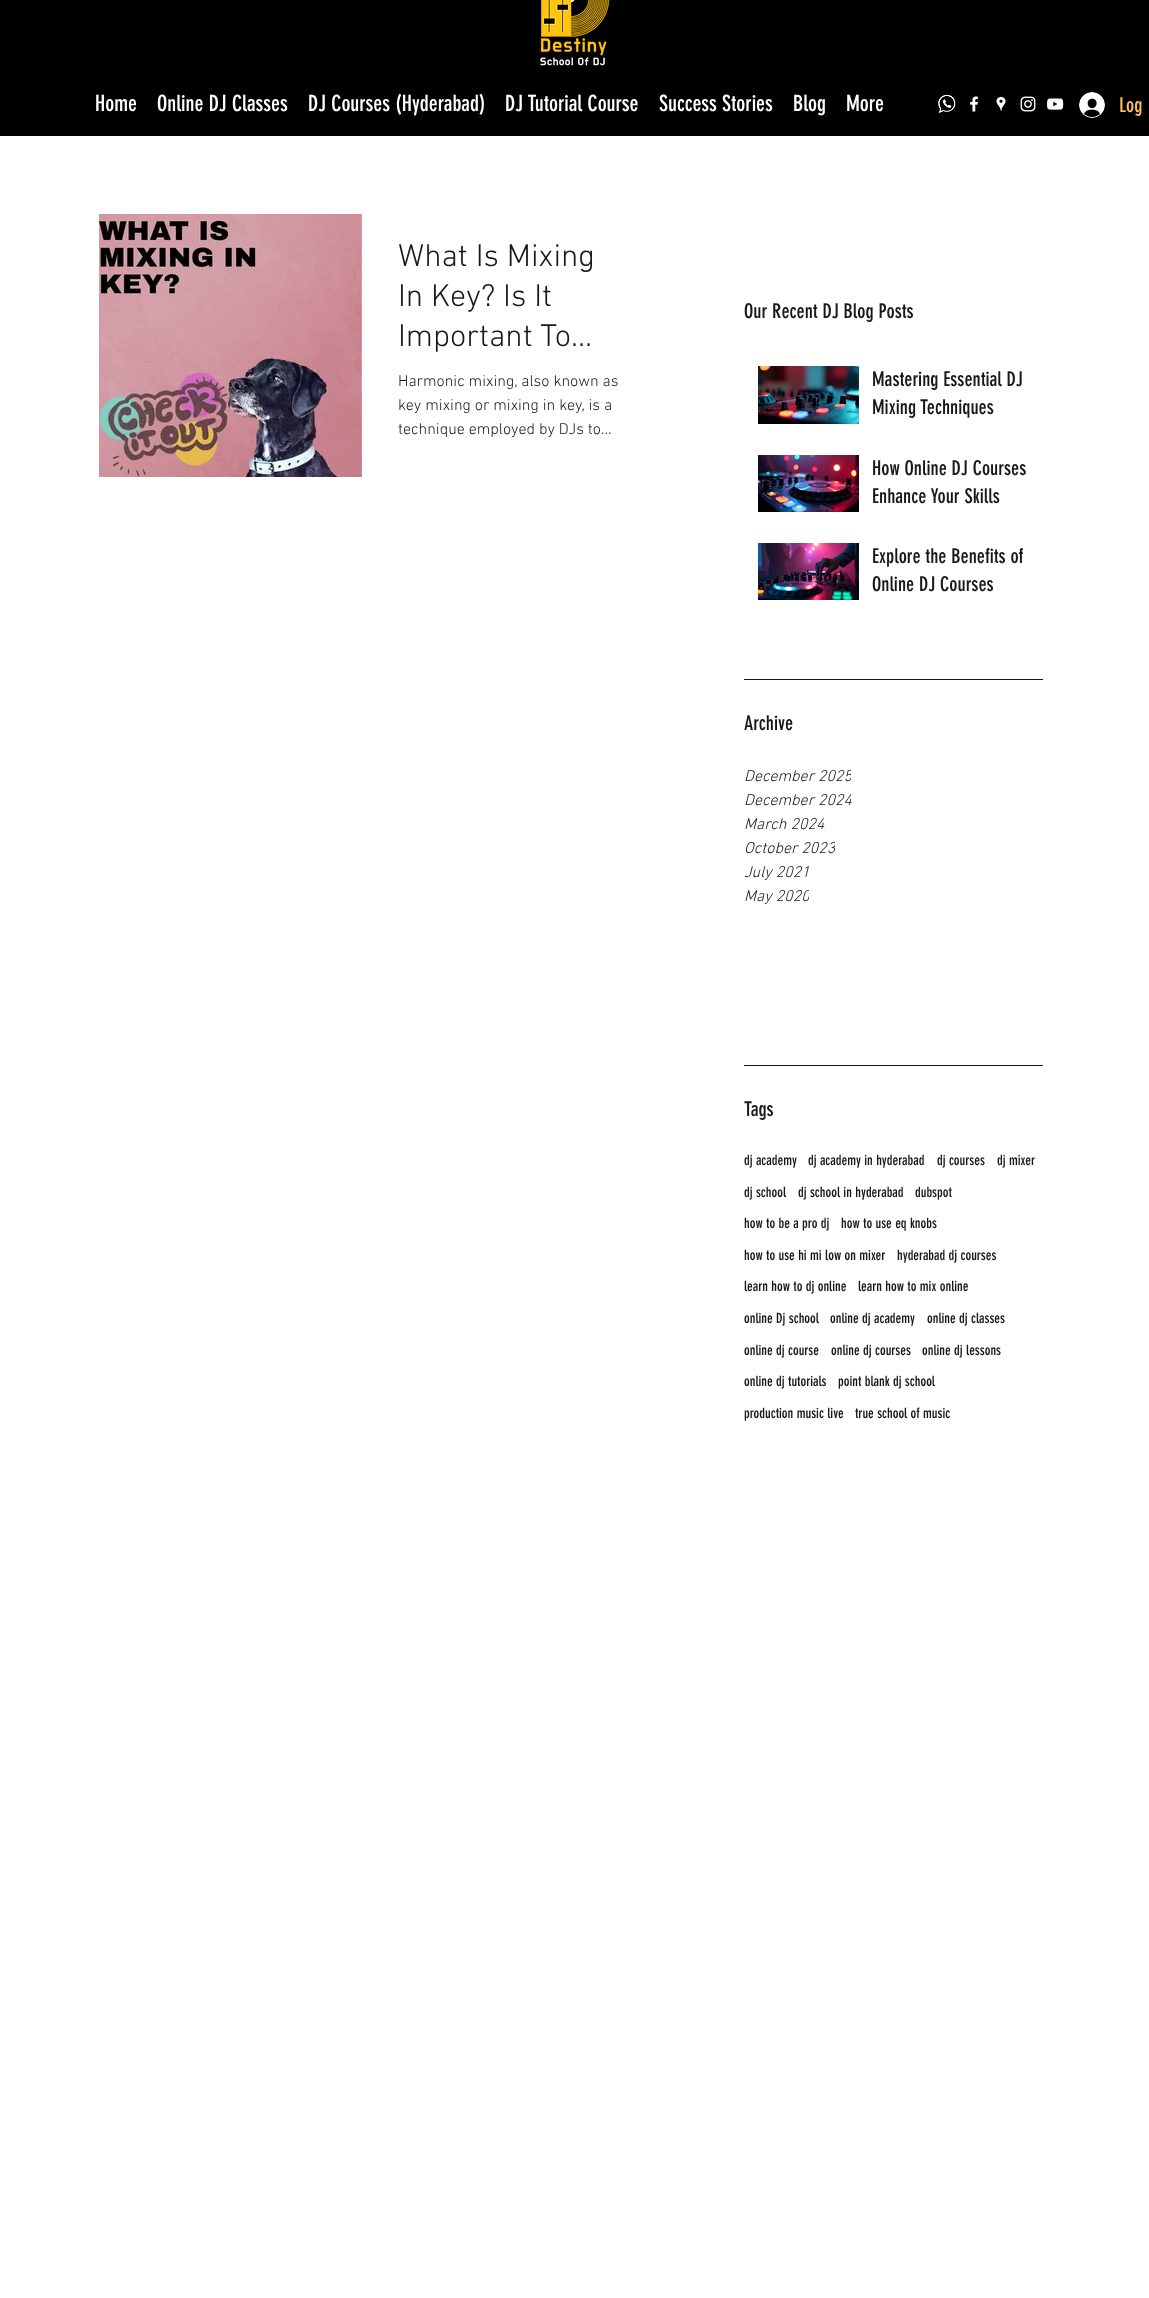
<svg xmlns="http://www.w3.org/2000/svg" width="1149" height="2298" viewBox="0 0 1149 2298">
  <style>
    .t1 { font: 22px 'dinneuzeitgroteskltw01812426'; fill: #fff; }
    .t2 { font: 20px 'dinneuzeitgroteskltw01812426'; fill: #ffbd59; }
    .t3 { font: 300 32px 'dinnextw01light'; fill: #181818; }
    .t4 { font: 300 16px 'dinnextw01light'; fill: #181818; }
    .t5 { font: 20px 'dinneuzeitgroteskltw01812426'; fill: #181818; }
    .t6 { font: italic 300 16px 'dinnextw01light'; fill: #181818; }
    .t7 { font: 14px 'dinneuzeitgroteskltw01812426'; fill: #181818; }
  </style>
  <defs>
    <clipPath id="clip1"><rect x="744" y="765" width="107" height="24"/></clipPath>
    <clipPath id="clip2"><rect x="744" y="837" width="91" height="24"/></clipPath>
    <clipPath id="clip3"><rect x="744" y="885" width="65" height="24"/></clipPath>
  </defs>
  <rect width="100%" height="100%" fill="#000"/>
  <image x="540" y="0" width="70" height="66" href="images/1.png"/>
  <text x="95" y="111" class="t1">Home</text>
  <text x="157" y="111" class="t1">Online DJ Classes</text>
  <text x="308" y="111" class="t1">DJ Courses (Hyderabad)</text>
  <text x="505" y="111" class="t1">DJ Tutorial Course</text>
  <text x="659" y="111" class="t1">Success Stories</text>
  <text x="793" y="111" class="t1">Blog</text>
  <text x="846" y="111" class="t1">More</text>
  <image x="938" y="94" width="18" height="20" href="images/2.png"/>
  <image x="970" y="96" width="9" height="16" href="images/3.png"/>
  <image x="996" y="96" width="10" height="15" href="images/4.png"/>
  <image x="1020" y="96" width="16" height="16" href="images/5.png"/>
  <image x="1046" y="98" width="18" height="12" href="images/6.png"/>
  <image x="1079" y="92" width="26" height="26" href="images/7.png"/>
  <text x="1119" y="112" class="t2">Log</text>
  <rect x="0" y="136" width="1149" height="2162" fill="#fff"/>
  <image x="99" y="214" width="263" height="263" href="images/8.png"/>
  <text x="398" y="266" class="t3">What Is Mixing</text>
  <text x="398" y="306" class="t3">In Key? Is It</text>
  <text x="398" y="346" class="t3">Important To…</text>
  <text x="398" y="386" class="t4">Harmonic mixing, also known as</text>
  <text x="398" y="410" class="t4">key mixing or mixing in key, is a</text>
  <text x="398" y="434" class="t4">technique employed by DJs to…</text>
  <text x="744" y="318" class="t5">Our Recent DJ Blog Posts</text>
  <image x="758" y="366" width="101" height="58" href="images/9.png"/>
  <text x="872" y="386" class="t5">Mastering Essential DJ</text>
  <text x="872" y="414" class="t5">Mixing Techniques</text>
  <image x="758" y="455" width="101" height="57" href="images/10.png"/>
  <text x="872" y="475" class="t5">How Online DJ Courses</text>
  <text x="872" y="503" class="t5">Enhance Your Skills</text>
  <image x="758" y="543" width="101" height="57" href="images/11.png"/>
  <text x="872" y="563" class="t5">Explore the Benefits of</text>
  <text x="872" y="591" class="t5">Online DJ Courses</text>
  <rect x="744" y="679" width="299" height="1" fill="#181818"/>
  <text x="744" y="730" class="t5">Archive</text>
  <g clip-path="url(#clip1)">
    <text x="744" y="781" class="t6">December 2025</text>
  </g>
  <text x="744" y="805" class="t6">December 2024</text>
  <text x="744" y="829" class="t6">March 2024</text>
  <g clip-path="url(#clip2)">
    <text x="744" y="853" class="t6">October 2023</text>
  </g>
  <text x="744" y="877" class="t6">July 2021</text>
  <g clip-path="url(#clip3)">
    <text x="744" y="901" class="t6">May 2020</text>
  </g>
  <rect x="744" y="1065" width="299" height="1" fill="#181818"/>
  <text x="744" y="1116" class="t5">Tags</text>
  <text x="744" y="1165" class="t7">dj academy</text>
  <text x="808" y="1165" class="t7">dj academy in hyderabad</text>
  <text x="937" y="1165" class="t7">dj courses</text>
  <text x="997" y="1165" class="t7">dj mixer</text>
  <text x="744" y="1197" class="t7">dj school</text>
  <text x="798" y="1197" class="t7">dj school in hyderabad</text>
  <text x="915" y="1197" class="t7">dubspot</text>
  <text x="744" y="1228" class="t7">how to be a pro dj</text>
  <text x="841" y="1228" class="t7">how to use eq knobs</text>
  <text x="744" y="1260" class="t7">how to use hi mi low on mixer</text>
  <text x="897" y="1260" class="t7">hyderabad dj courses</text>
  <text x="744" y="1291" class="t7">learn how to dj online</text>
  <text x="858" y="1291" class="t7">learn how to mix online</text>
  <text x="744" y="1323" class="t7">online Dj school</text>
  <text x="830" y="1323" class="t7">online dj academy</text>
  <text x="927" y="1323" class="t7">online dj classes</text>
  <text x="744" y="1355" class="t7">online dj course</text>
  <text x="831" y="1355" class="t7">online dj courses</text>
  <text x="922" y="1355" class="t7">online dj lessons</text>
  <text x="744" y="1386" class="t7">online dj tutorials</text>
  <text x="838" y="1386" class="t7">point blank dj school</text>
  <text x="744" y="1418" class="t7">production music live</text>
  <text x="855" y="1418" class="t7">true school of music</text>
</svg>
